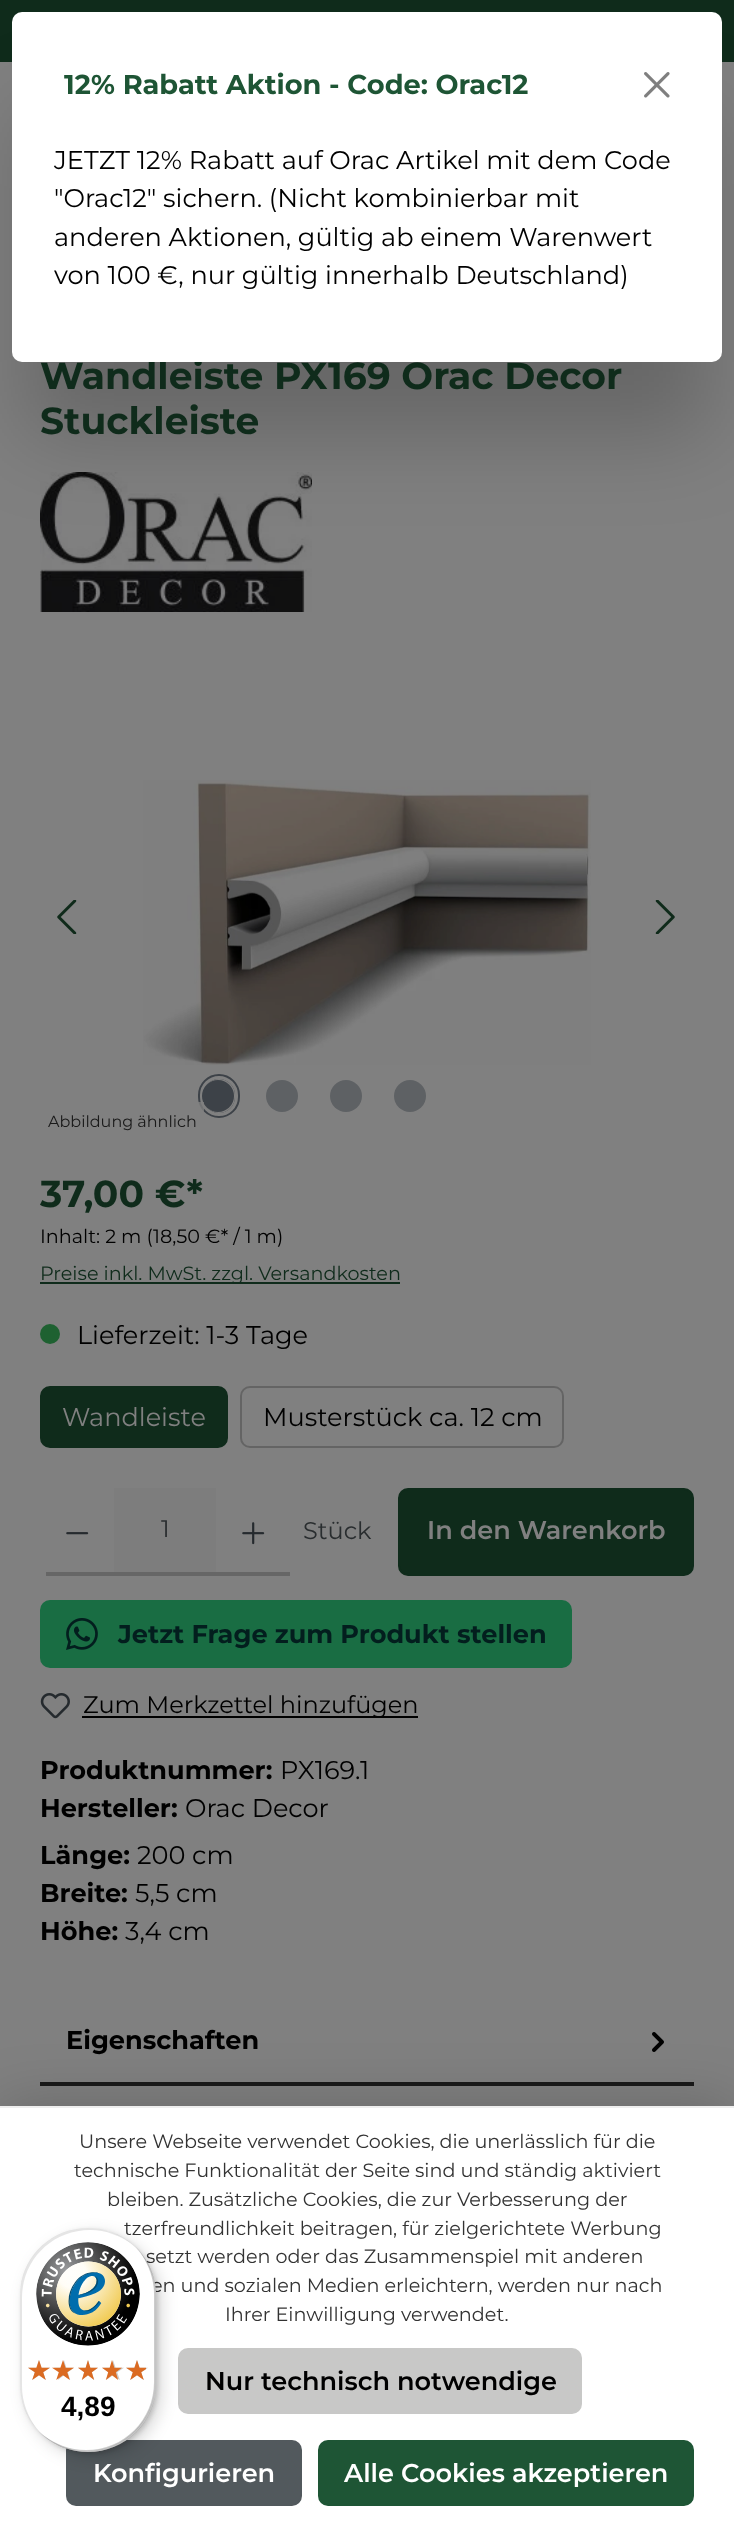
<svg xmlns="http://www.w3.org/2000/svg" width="734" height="2532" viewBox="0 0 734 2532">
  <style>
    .t1 { font: 100 37.7px Montserrat; fill: #0f2b1b; }
    .t2 { font: 100 27.25px Montserrat; fill: #1e5535; }
    .t3 { font: 100 25.6px 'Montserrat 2'; fill: #000; }
    .t4 { font: 100 16px 'Montserrat 2'; fill: #1a1a1a; }
    .t5 { font: 100 19.2px 'Montserrat 2'; fill: #000; }
    .t6 { font: 100 19.2px 'Montserrat 2'; fill: #0f2b1b; }
    .t7 { font: 100 25.6px 'Montserrat 2'; fill: #808080; }
    .t8 { font: 100 24px 'Montserrat 2'; fill: #292d2f; }
    .t9 { font: 100 25.6px 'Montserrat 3'; fill: #808080; }
    .t10 { font: 100 25.6px Montserrat; fill: #031e1e; }
    .t11 { font: 100 24px 'Montserrat 2'; fill: #000; }
    .t12 { font: 100 25.6px Montserrat; fill: #000; }
    .t13 { font: 100 19.2px 'Montserrat 2'; fill: #333; }
    .t14 { font: 100 25.6px 'Montserrat 3'; fill: #000; }
    .t15 { font: 100 25.6px 'Montserrat 3'; fill: #fff; }
    .t16 { font: bold 28px Liberation Sans; fill: #000; }
  </style>
  <rect width="100%" height="100%" fill="#808080"/>
  <rect x="0" y="0" width="734" height="62" fill="#0f2b1b"/>
  <image x="40" y="472" width="272" height="140" href="images/2.png"/>
  <rect x="24" y="110" width="686" height="326" fill="#00000033" filter="blur(43px)"/>
  <text x="40" y="389" class="t1">Wandleiste PX169 Orac Decor</text>
  <rect x="12" y="12" width="710" height="350" rx="10" fill="#fff"/>
  <text x="64" y="94" class="t2">12% Rabatt Aktion - Code: Orac12</text>
  <image x="644" y="72" width="26" height="26" href="images/1.png"/>
  <text x="54" y="169" class="t3">JETZT 12% Rabatt auf Orac Artikel mit dem Code</text>
  <text x="54" y="207" class="t3">"Orac12" sichern. (Nicht kombinierbar mit</text>
  <text x="54" y="246" class="t3">anderen Aktionen, gültig ab einem Warenwert</text>
  <text x="54" y="284" class="t3">von 100 €, nur gültig innerhalb Deutschland)</text>
  <text x="40" y="434" class="t1">Stuckleiste</text>
  <image x="143" y="780" width="448" height="285" href="images/3.png"/>
  <image x="57" y="900" width="20" height="34" href="images/4.png"/>
  <image x="655" y="900" width="20" height="34" href="images/5.png"/>
  <rect x="200.5" y="1076.5" width="37" height="39" rx="18.5" fill="none" stroke="#3d4248" stroke-width="5"/>
  <rect x="201.5" y="1077.5" width="35" height="37" rx="17.5" fill="none" stroke="#808080" stroke-width="3"/>
  <circle cx="218" cy="1096" r="16" fill="#3d4248"/>
  <circle cx="282" cy="1096" r="16" fill="#5e6164"/>
  <circle cx="346" cy="1096" r="16" fill="#5e6164"/>
  <circle cx="410" cy="1096" r="16" fill="#5e6164"/>
  <rect x="198" y="1102" width="6" height="10" fill="#808080cc"/>
  <text x="48" y="1127" class="t4">Abbildung ähnlich</text>
  <text x="40" y="1207" class="t1">37,00 €*</text>
  <text x="40" y="1243" class="t5">Inhalt: 2 m (18,50 €* / 1 m)</text>
  <rect x="40" y="1282" width="360" height="2" fill="#0f2b1b"/>
  <text x="40" y="1280" class="t6">Preise inkl. MwSt. zzgl. Versandkosten</text>
  <circle cx="50" cy="1334" r="10" fill="#1e6131"/>
  <text x="77" y="1344" class="t3">Lieferzeit: 1-3 Tage</text>
  <rect x="41" y="1387" width="186" height="60" rx="9" fill="#0f2b1b" stroke="#0f2b1b" stroke-width="2"/>
  <text x="62" y="1426" class="t7">Wandleiste</text>
  <rect x="241" y="1387" width="322" height="60" rx="9" fill="none" stroke="#646464" stroke-width="2"/>
  <text x="263" y="1426" class="t3">Musterstück ca. 12 cm</text>
  <rect x="112" y="1572" width="178" height="4" fill="#666"/>
  <path d="M50 1488H114V1576H50C44.5 1576 40 1571.5 40 1566V1498C40 1492.5 44.5 1488 50 1488Z" fill="#808080"/>
  <rect x="46" y="1572" width="68" height="4" fill="#666"/>
  <image x="66" y="1532" width="23" height="3" href="images/6.png"/>
  <rect x="114" y="1488" width="102" height="84" fill="#7d7d7d"/>
  <text x="161" y="1537" class="t8">1</text>
  <image x="242" y="1522" width="23" height="23" href="images/7.png"/>
  <text x="303" y="1539" class="t8">Stück</text>
  <rect x="399" y="1489" width="294" height="86" rx="9" fill="#0f2b1b" stroke="#0f2b1b" stroke-width="2"/>
  <text x="427" y="1539" class="t9">In den Warenkorb</text>
  <rect x="40" y="1600" width="532" height="68" rx="10" fill="#196d43"/>
  <image x="66" y="1618" width="32" height="32" href="images/8.png"/>
  <text x="118" y="1643" class="t10">Jetzt Frage zum Produkt stellen</text>
  <image x="40" y="1693" width="30" height="26" href="images/9.png"/>
  <rect x="82" y="1716" width="336" height="2" fill="#000"/>
  <text x="83" y="1713" class="t11">Zum Merkzettel hinzufügen</text>
  <text x="40" y="1779" class="t12">Produktnummer:</text>
  <text x="280" y="1779" class="t3">PX169.1</text>
  <text x="40" y="1817" class="t12">Hersteller:</text>
  <text x="185" y="1817" class="t3">Orac Decor</text>
  <text x="40" y="1864" class="t12">Länge:</text>
  <text x="137" y="1864" class="t3">200 cm</text>
  <text x="40" y="1902" class="t12">Breite:</text>
  <text x="135" y="1902" class="t3">5,5 cm</text>
  <text x="40" y="1940" class="t12">Höhe:</text>
  <text x="125" y="1940" class="t3">3,4 cm</text>
  <rect x="40" y="2082" width="654" height="4" fill="#1a1a1a"/>
  <text x="66" y="2049" class="t12">Eigenschaften</text>
  <image x="652" y="2032" width="12" height="20" href="images/10.png"/>
  <rect x="0" y="2106" width="734" height="426" fill="#00000033" filter="blur(30px)"/>
  <rect x="0" y="2108" width="734" height="424" fill="#fff"/>
  <rect x="0" y="2106" width="734" height="2" fill="#eee"/>
  <text x="79" y="2148" class="t13">Unsere Webseite verwendet Cookies, die unerlässlich für die</text>
  <text x="74" y="2177" class="t13">technische Funktionalität der Seite sind und ständig aktiviert</text>
  <text x="107" y="2206" class="t13">bleiben. Zusätzliche Cookies, die zur Verbesserung der</text>
  <text x="124" y="2235" class="t13">tzerfreundlichkeit beitragen, für zielgerichtete Werbung</text>
  <text x="146" y="2263" class="t13">setzt werden oder das Zusammenspiel mit anderen</text>
  <text x="151" y="2292" class="t13">en und sozialen Medien erleichtern, werden nur nach</text>
  <text x="225" y="2321" class="t13">Ihrer Einwilligung verwendet.</text>
  <rect x="179" y="2349" width="402" height="64" rx="9" fill="#c8c8c7" stroke="#c8c8c7" stroke-width="2"/>
  <text x="205" y="2390" class="t14">Nur technisch notwendige</text>
  <rect x="67" y="2441" width="234" height="64" rx="9" fill="#52595d" stroke="#52595d" stroke-width="2"/>
  <text x="93" y="2482" class="t15">Konfigurieren</text>
  <rect x="319" y="2441" width="374" height="64" rx="9" fill="#1e5535" stroke="#1e5535" stroke-width="2"/>
  <text x="344" y="2482" class="t15">Alle Cookies akzeptieren</text>
  <rect x="26" y="2234" width="136" height="224" rx="68" fill="#00000026" filter="blur(8px)"/>
  <rect x="22" y="2230" width="136" height="224" rx="68" fill="#00000026" filter="blur(2px)"/>
  <rect x="20" y="2228" width="136" height="224" rx="68" fill="#fff"/>
  <path d="M90 2230C106 2230 121 2236 133 2245C121 2234 105 2228 88 2228C50 2228 20 2258 20 2296V2384C20 2401 26 2417 37 2429C28 2417 22 2402 22 2386V2298C22 2260 52 2230 90 2230Z" fill="#0000001a"/>
  <path d="M43 2435C55 2446 71 2452 88 2452C126 2452 156 2422 156 2384V2296C156 2279 150 2263 139 2251C148 2263 154 2278 154 2294V2382C154 2420 124 2450 86 2450C70 2450 55 2444 43 2435Z" fill="#00000033"/>
  <path d="M38 2431C51 2444 68 2452 88 2452C126 2452 156 2422 156 2384V2296C156 2276 148 2259 135 2246C147 2259 155 2276 155 2295V2383C155 2420 124 2451 87 2451C68 2451 51 2443 38 2431Z" fill="#32323233"/>
  <path d="M47 2438C59 2447 73 2452 88 2452C126 2452 156 2422 156 2384V2296C156 2281 151 2267 142 2255C150 2266 155 2280 155 2295V2383C155 2421 125 2451 87 2451C72 2451 58 2446 47 2438Z" fill="#ffffff4d"/>
  <image x="36" y="2242" width="104" height="104" href="images/11.png"/>
  <image x="28" y="2360" width="22" height="20" href="images/12.png"/>
  <image x="54" y="2360" width="20" height="20" href="images/13.png"/>
  <image x="78" y="2360" width="20" height="20" href="images/14.png"/>
  <image x="102" y="2360" width="22" height="20" href="images/15.png"/>
  <image x="126" y="2360" width="22" height="20" href="images/15.png"/>
  <image x="28" y="2360" width="22" height="20" href="images/16.png"/>
  <image x="52" y="2360" width="22" height="20" href="images/17.png"/>
  <image x="78" y="2360" width="20" height="20" href="images/18.png"/>
  <image x="102" y="2360" width="20" height="20" href="images/19.png"/>
  <image x="126" y="2360" width="20" height="20" href="images/20.png"/>
  <text x="61" y="2416" class="t16">4,89</text>
</svg>
